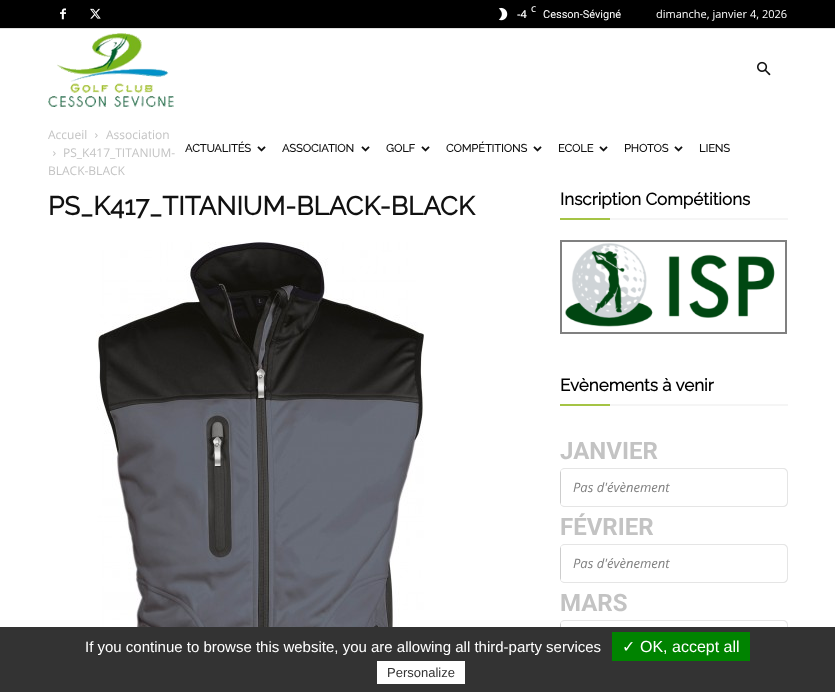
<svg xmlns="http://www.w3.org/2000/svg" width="835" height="692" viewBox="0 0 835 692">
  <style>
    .t1 { font: 600 11px Open Sans; fill: #fff; }
    .t2 { font: 600 8px Open Sans; fill: #fff; }
    .t3 { font: 11px Roboto; fill: #fff; }
    .t4 { font: 11px Open Sans; fill: #fff; }
    .t5 { font: bold 11px Raleway; fill: #111; }
    .t6 { font: 12px Open Sans; fill: #c3c3c3; }
    .t7 { font: bold 26px Raleway; fill: #111; }
    .t8 { font: bold 17px Raleway; fill: #000; }
    .t9 { font: bold 24px Roboto; fill: #c3c3c3; }
    .t10 { font: italic 13px Open Sans; fill: #808080; }
    .t11 { font: 15px Liberation Sans; fill: #fff; }
    .t12 { font: 16px DejaVu Sans; fill: #fff; }
    .t13 { font: 16px Liberation Sans; fill: #fff; }
    .t14 { font: 13px Liberation Sans; fill: #333; }
  </style>
  <rect width="100%" height="100%" fill="#fff"/>
  <rect x="0" y="0" width="835" height="28" fill="#000"/>
  <rect x="0" y="28" width="835" height="1" fill="#e0e0e0"/>
  <image x="60" y="8" width="6" height="12" href="images/1.png"/>
  <image x="90" y="8" width="11" height="11" href="images/2.png"/>
  <image x="498" y="7" width="10" height="14" href="images/3.png"/>
  <text x="517" y="18" class="t1">-4</text>
  <text x="531" y="12" class="t2">C</text>
  <text x="543" y="18" class="t3">Cesson-Sévigné</text>
  <text x="656" y="18" class="t4">dimanche, janvier 4, 2026</text>
  <image x="757" y="61" width="14" height="15" href="images/4.png"/>
  <image x="48" y="33" width="126" height="74" href="images/5.png"/>
  <text x="185" y="152" class="t5">ACTUALITÉS</text>
  <image x="257" y="146" width="9" height="6" href="images/6.png"/>
  <text x="282" y="152" class="t5">ASSOCIATION</text>
  <image x="361" y="146" width="9" height="6" href="images/6.png"/>
  <text x="386" y="152" class="t5">GOLF</text>
  <image x="421" y="146" width="9" height="6" href="images/6.png"/>
  <text x="446" y="152" class="t5">COMPÉTITIONS</text>
  <image x="533" y="146" width="9" height="6" href="images/6.png"/>
  <text x="558" y="152" class="t5">ECOLE</text>
  <image x="599" y="146" width="9" height="6" href="images/6.png"/>
  <text x="624" y="152" class="t5">PHOTOS</text>
  <image x="674" y="146" width="9" height="6" href="images/6.png"/>
  <text x="699" y="152" class="t5">LIENS</text>
  <text x="48" y="139" class="t6">Accueil</text>
  <image x="95" y="133" width="3" height="5" href="images/7.png"/>
  <text x="106" y="139" class="t6">Association</text>
  <image x="53" y="151" width="3" height="5" href="images/7.png"/>
  <text x="63" y="157" class="t6">PS_K417_TITANIUM-</text>
  <text x="48" y="175" class="t6">BLACK-BLACK</text>
  <text x="48" y="215" class="t7">PS_K417_TITANIUM-BLACK-BLACK</text>
  <image x="96" y="242" width="328" height="385" href="images/8.png"/>
  <text x="560" y="205" class="t8">Inscription Compétitions</text>
  <rect x="560" y="218" width="50" height="2" fill="#a5c445"/>
  <rect x="610" y="218" width="178" height="2" fill="#f5f5f5"/>
  <rect x="561" y="241" width="225" height="92" fill="none" stroke="#808080" stroke-width="2"/>
  <image x="565" y="243" width="210" height="84" href="images/9.png"/>
  <text x="560" y="391" class="t8">Evènements à venir</text>
  <rect x="560" y="404" width="50" height="2" fill="#a5c445"/>
  <rect x="610" y="404" width="178" height="2" fill="#f5f5f5"/>
  <text x="560" y="459" class="t9">JANVIER</text>
  <path d="M565 468H783C786 468 788 470 788 473V502C788 505 786 507 783 507H565C562 507 560 505 560 502V473C560 470 562 468 565 468ZM565 469H783C785 469 787 471 787 473V502C787 504 785 506 783 506H565C562 506 560 504 560 502V473C560 471 562 469 565 469Z" fill="#e5e5e5" fill-rule="evenodd"/>
  <path d="M560 473V502C560 503 560.5 503.5 561 504.5V470.5C560.5 471.5 560 472 560 473Z" fill="#cdcdcd"/>
  <text x="573" y="492" class="t10">Pas d'évènement</text>
  <text x="560" y="535" class="t9">FÉVRIER</text>
  <path d="M565 544H783C786 544 788 546 788 549V578C788 581 786 583 783 583H565C562 583 560 581 560 578V549C560 546 562 544 565 544ZM565 545H783C785 545 787 547 787 549V578C787 580 785 582 783 582H565C562 582 560 580 560 578V549C560 547 562 545 565 545Z" fill="#e5e5e5" fill-rule="evenodd"/>
  <path d="M560 549V578C560 579 560.5 579.5 561 580.5V546.5C560.5 547.5 560 548 560 549Z" fill="#cdcdcd"/>
  <text x="573" y="568" class="t10">Pas d'évènement</text>
  <text x="560" y="611" class="t9">MARS</text>
  <path d="M565 620H783C786 620 788 622 788 625V654C788 657 786 659 783 659H565C562 659 560 657 560 654V625C560 622 562 620 565 620ZM565 621H783C785 621 787 623 787 625V654C787 656 785 658 783 658H565C562 658 560 656 560 654V625C560 623 562 621 565 621Z" fill="#e5e5e5" fill-rule="evenodd"/>
  <path d="M560 625V654C560 655 560.5 655.5 561 656.5V622.5C560.5 623.5 560 624 560 625Z" fill="#cdcdcd"/>
  <rect x="0" y="627" width="835" height="65" fill="#333"/>
  <text x="85" y="652" class="t11">If you continue to browse this website, you are allowing all third-party services</text>
  <rect x="612" y="632" width="138" height="29" fill="#008300"/>
  <text x="622" y="652" class="t12">✓</text>
  <text x="640" y="652" class="t13">OK, accept all</text>
  <rect x="377" y="661" width="88" height="23" fill="#fff"/>
  <text x="387" y="677" class="t14">Personalize</text>
</svg>
